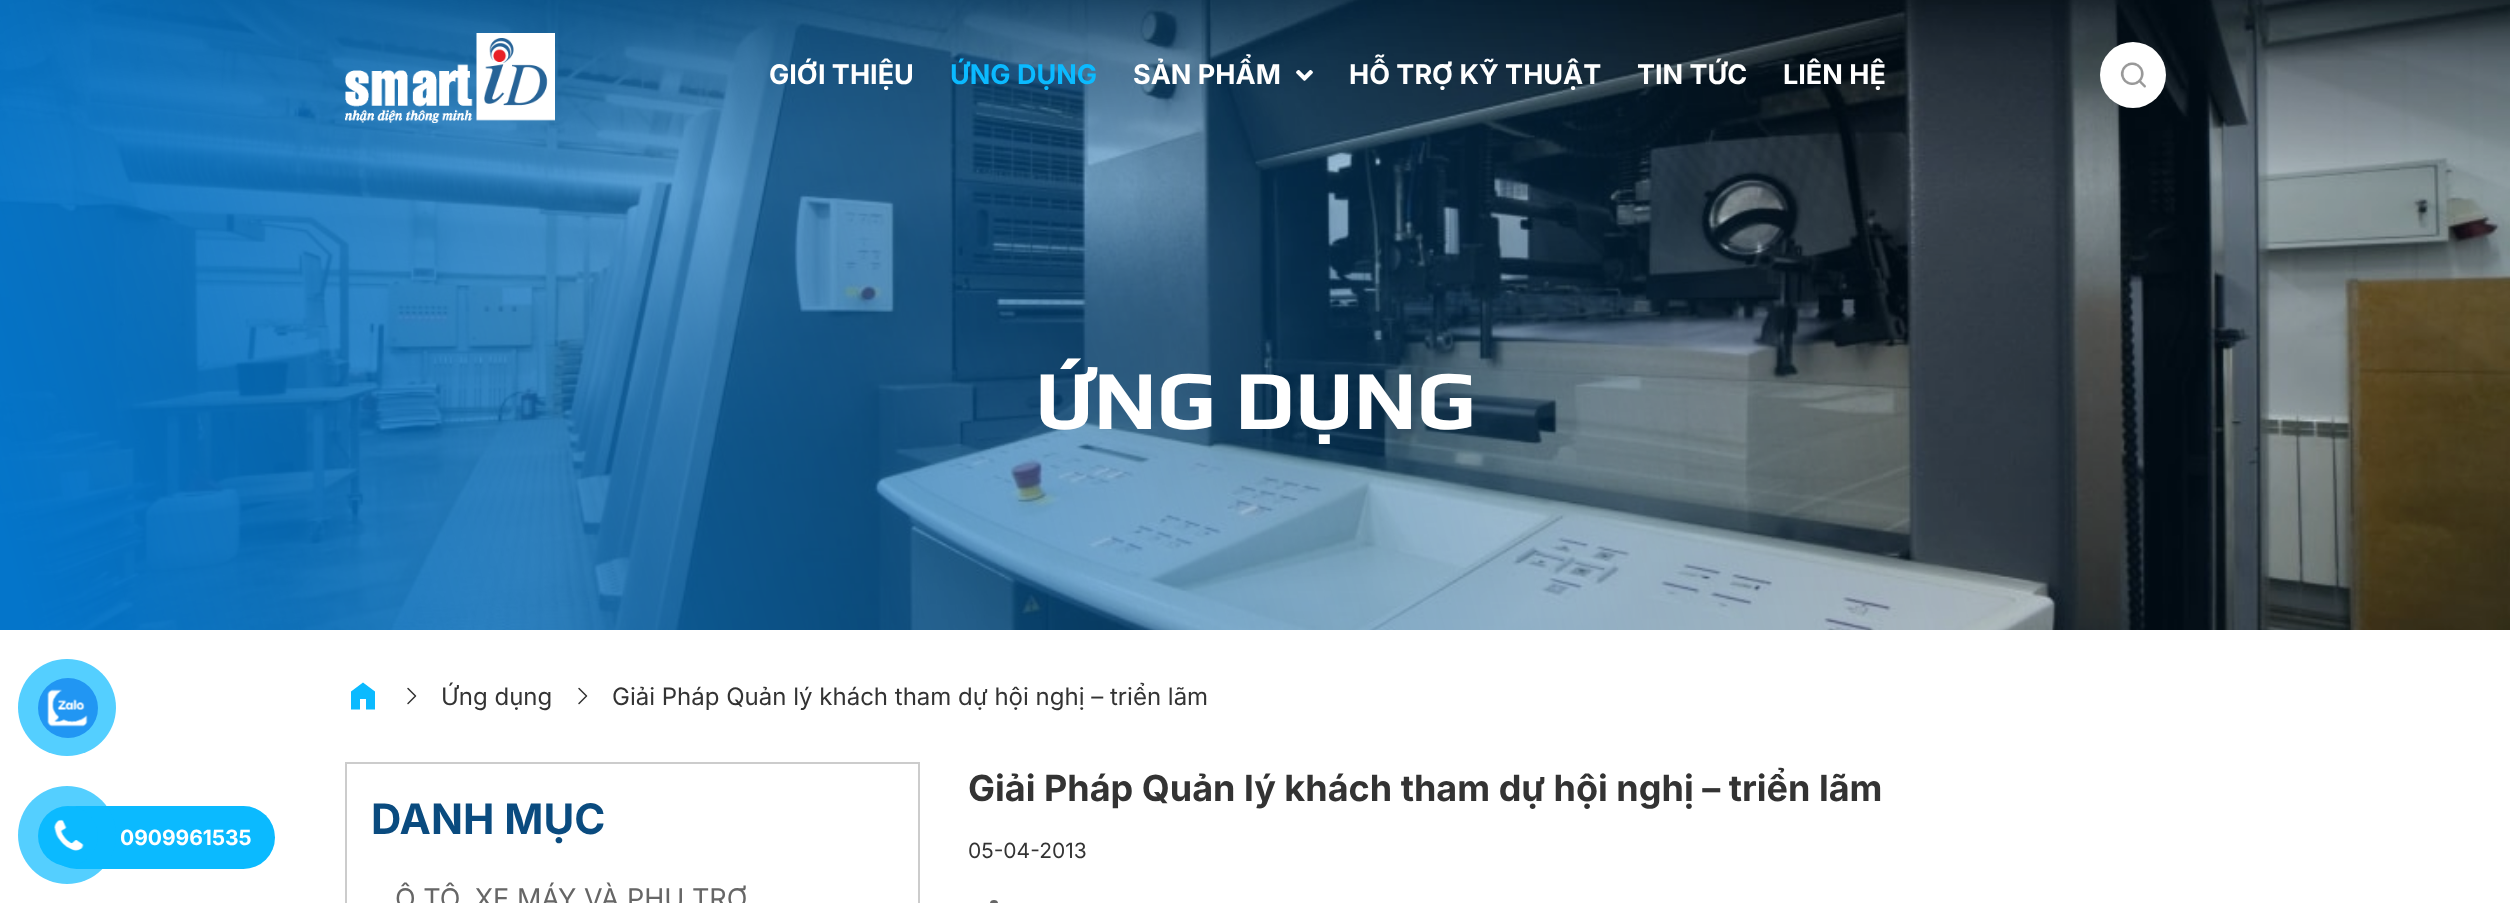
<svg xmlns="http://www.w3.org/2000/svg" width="2510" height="903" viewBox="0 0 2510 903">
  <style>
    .t1 { font: bold 27px Inter; fill: #fff; }
    .t2 { font: bold 27px Inter; fill: #0bbaff; }
    .t3 { font: bold 21px Inter; fill: #fff; }
    .t4 { font: bold 84px Play; fill: #fff; }
    .t5 { font: 24px Inter; fill: #333; }
    .t6 { font: bold 42px Inter; fill: #0a4b7f; }
    .t7 { font: 27px Inter; fill: #666; }
    .t8 { font: bold 36px Inter; fill: #333; }
    .t9 { font: 21px Inter; fill: #333; }
  </style>
  <rect width="100%" height="100%" fill="#fff"/>
  <image x="0" y="0" width="2510" height="630" href="images/6.png"/>
  <image x="345" y="33" width="210" height="90" href="images/1.png"/>
  <text x="769" y="84" class="t1">GIỚI THIỆU</text>
  <text x="950" y="84" class="t2">ỨNG DỤNG</text>
  <text x="1133" y="84" class="t1">SẢN PHẨM</text>
  <image x="1296" y="70" width="17" height="11" href="images/2.png"/>
  <text x="1349" y="84" class="t1">HỖ TRỢ KỸ THUẬT</text>
  <text x="1637" y="84" class="t1">TIN TỨC</text>
  <text x="1783" y="84" class="t1">LIÊN HỆ</text>
  <circle cx="2133" cy="75" r="33" fill="#fff"/>
  <image x="2120" y="62" width="26" height="26" href="images/3.png"/>
  <rect x="18" y="659" width="98" height="97" rx="48.5" fill="#54cfff"/>
  <circle cx="68" cy="708" r="30" fill="#2196f3"/>
  <image x="47" y="689" width="41" height="38" href="images/4.png"/>
  <rect x="45" y="806" width="230" height="63" rx="31.5" fill="#0bbaff"/>
  <circle cx="67" cy="835" r="49" fill="#0bbaffb3"/>
  <circle cx="68" cy="836" r="30" fill="#0bbaff"/>
  <image x="54" y="819" width="30" height="32" href="images/5.png"/>
  <text x="120" y="845" class="t3">0909961535</text>
  <text x="1035" y="429" class="t4">ỨNG DỤNG</text>
  <path d="M351 709.5V691.5L363 682.5L375 691.5V709.5H366V699H360V709.5Z" fill="#0bbaff"/>
  <path d="M408 688.5L415.5 696L408 703.5" fill="none" stroke="#333" stroke-width="1.5" stroke-linecap="round" stroke-linejoin="round"/>
  <text x="441" y="705" class="t5">Ứng dụng</text>
  <path d="M579 688.5L586.5 696L579 703.5" fill="none" stroke="#333" stroke-width="1.5" stroke-linecap="round" stroke-linejoin="round"/>
  <text x="612" y="705" class="t5">Giải Pháp Quản lý khách tham dự hội nghị – triển lãm</text>
  <rect x="346" y="763" width="573" height="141" fill="none" stroke="#ccc" stroke-width="2"/>
  <text x="371" y="834" class="t6">DANH MỤC</text>
  <text x="395" y="908" class="t7">Ô TÔ, XE MÁY VÀ PHỤ TRỢ</text>
  <text x="968" y="801" class="t8">Giải Pháp Quản lý khách tham dự hội nghị – triển lãm</text>
  <text x="968" y="858" class="t9">05-04-2013</text>
  <rect x="990" y="900" width="8" height="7" rx="4" fill="#666"/>
</svg>
